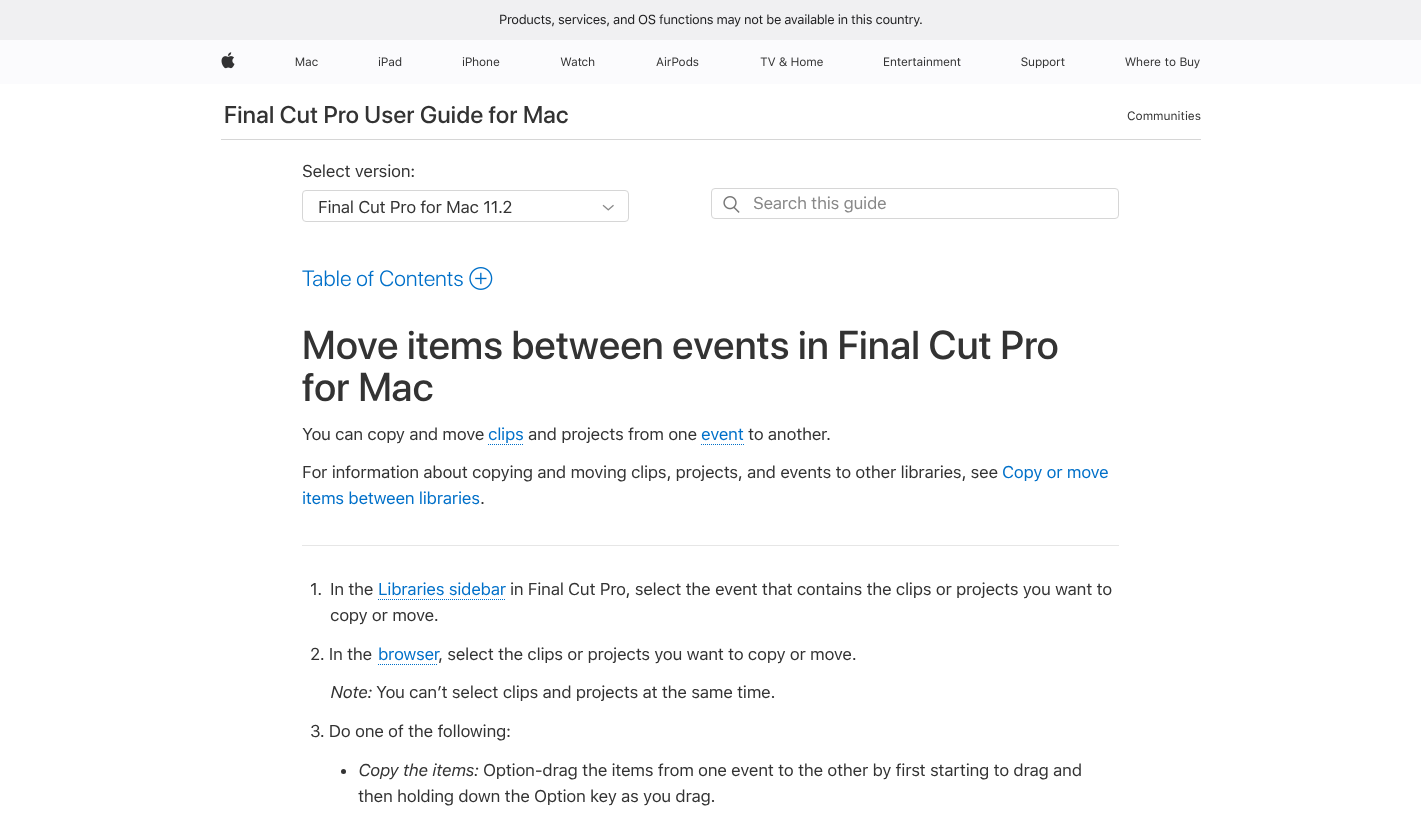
<svg xmlns="http://www.w3.org/2000/svg" width="1421" height="822" viewBox="0 0 1421 822">
  <style>
    .t1 { font: 13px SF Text; letter-spacing: -0.35px; fill: #1d1d1f; }
    .t2 { font: 500 24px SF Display; letter-spacing: 0.35px; fill: #333; }
    .t3 { font: 12px SF Text; fill: #333; }
    .t4 { font: 17px SF Text; letter-spacing: -0.35px; fill: #333; }
    .t5 { font: 17px SF Text; letter-spacing: -0.35px; fill: #888; }
    .t6 { font: 300 22px SF Display; letter-spacing: 0.3px; fill: #0070c9; }
    .t7 { font: 500 40px SF Display; letter-spacing: 0.3px; fill: #333; }
    .t8 { font: 17px SF Text; letter-spacing: -0.35px; fill: #0070c9; }
    .t9 { font: italic 17px SF Text; letter-spacing: -0.35px; fill: #333; }
  </style>
  <rect width="100%" height="100%" fill="#fff"/>
  <rect x="0" y="0" width="1421" height="40" fill="#f0f0f2"/>
  <text x="499" y="24" class="t1">Products, services, and OS functions may not be available in this country.</text>
  <rect x="0" y="40" width="1421" height="44" fill="#fbfbfd"/>
  <image x="221" y="52" width="14" height="17" href="images/1.png"/>
  <image x="295" y="57" width="23" height="10" href="images/2.png"/>
  <image x="378" y="57" width="24" height="10" href="images/3.png"/>
  <image x="462" y="57" width="38" height="10" href="images/4.png"/>
  <image x="560" y="57" width="35" height="10" href="images/5.png"/>
  <image x="656" y="57" width="43" height="10" href="images/6.png"/>
  <image x="760" y="57" width="63" height="10" href="images/7.png"/>
  <image x="884" y="57" width="77" height="9" href="images/8.png"/>
  <image x="1021" y="57" width="44" height="12" href="images/9.png"/>
  <image x="1125" y="57" width="75" height="12" href="images/10.png"/>
  <text x="224" y="123" class="t2">Final Cut Pro User Guide for Mac</text>
  <text x="1127" y="120" class="t3">Communities</text>
  <rect x="221" y="139" width="980" height="1" fill="#d6d6d6"/>
  <text x="302" y="177" class="t4">Select version:</text>
  <rect x="302.5" y="190.5" width="326" height="31" rx="3.5" fill="none" stroke="#d6d6d6"/>
  <text x="318" y="213" class="t4">Final Cut Pro for Mac 11.2</text>
  <image x="602" y="204" width="12" height="7" href="images/11.png"/>
  <rect x="711.5" y="188.5" width="407" height="30" rx="3.5" fill="none" stroke="#d6d6d6"/>
  <image x="723" y="196" width="17" height="17" href="images/12.png"/>
  <text x="753" y="209" class="t5">Search this guide</text>
  <text x="302" y="286" class="t6">Table of Contents</text>
  <image x="469" y="267" width="24" height="23" href="images/13.png"/>
  <text x="302" y="359" class="t7">Move items between events in Final Cut Pro</text>
  <text x="302" y="401" class="t7">for Mac</text>
  <text x="302" y="440" class="t4">You can copy and move</text>
  <text x="488" y="440" class="t8">clips</text>
  <path d="M488 444.5H524" fill="none" stroke="#0070c9" stroke-dasharray="1 1"/>
  <text x="528" y="440" class="t4">and projects from one</text>
  <text x="701" y="440" class="t8">event</text>
  <path d="M701 444.5H744" fill="none" stroke="#0070c9" stroke-dasharray="1 1"/>
  <text x="748" y="440" class="t4">to another.</text>
  <text x="302" y="478" class="t4">For information about copying and moving clips, projects, and events to other libraries, see</text>
  <text x="1002" y="478" class="t8">Copy or move</text>
  <text x="302" y="504" class="t8">items between libraries</text>
  <text x="480" y="504" class="t4">.</text>
  <rect x="302" y="545" width="817" height="1" fill="#e6e6e6"/>
  <text x="310" y="595" class="t4">1.</text>
  <text x="330" y="595" class="t4">In the</text>
  <text x="378" y="595" class="t8">Libraries sidebar</text>
  <path d="M378 599.5H505" fill="none" stroke="#0070c9" stroke-dasharray="1 1"/>
  <text x="510" y="595" class="t4">in Final Cut Pro, select the event that contains the clips or projects you want to</text>
  <text x="330" y="621" class="t4">copy or move.</text>
  <text x="310" y="660" class="t4">2. In the</text>
  <text x="378" y="660" class="t8">browser</text>
  <path d="M378 664.5H438" fill="none" stroke="#0070c9" stroke-dasharray="1 1"/>
  <text x="438" y="660" class="t4">, select the clips or projects you want to copy or move.</text>
  <text x="330" y="698" class="t9">Note:</text>
  <text x="376" y="698" class="t4">You can’t select clips and projects at the same time.</text>
  <text x="310" y="737" class="t4">3. Do one of the following:</text>
  <circle cx="343.5" cy="771.5" r="2.5" fill="#333"/>
  <text x="358" y="776" class="t9">Copy the items:</text>
  <text x="483" y="776" class="t4">Option-drag the items from one event to the other by first starting to drag and</text>
  <text x="358" y="802" class="t4">then holding down the Option key as you drag.</text>
</svg>
